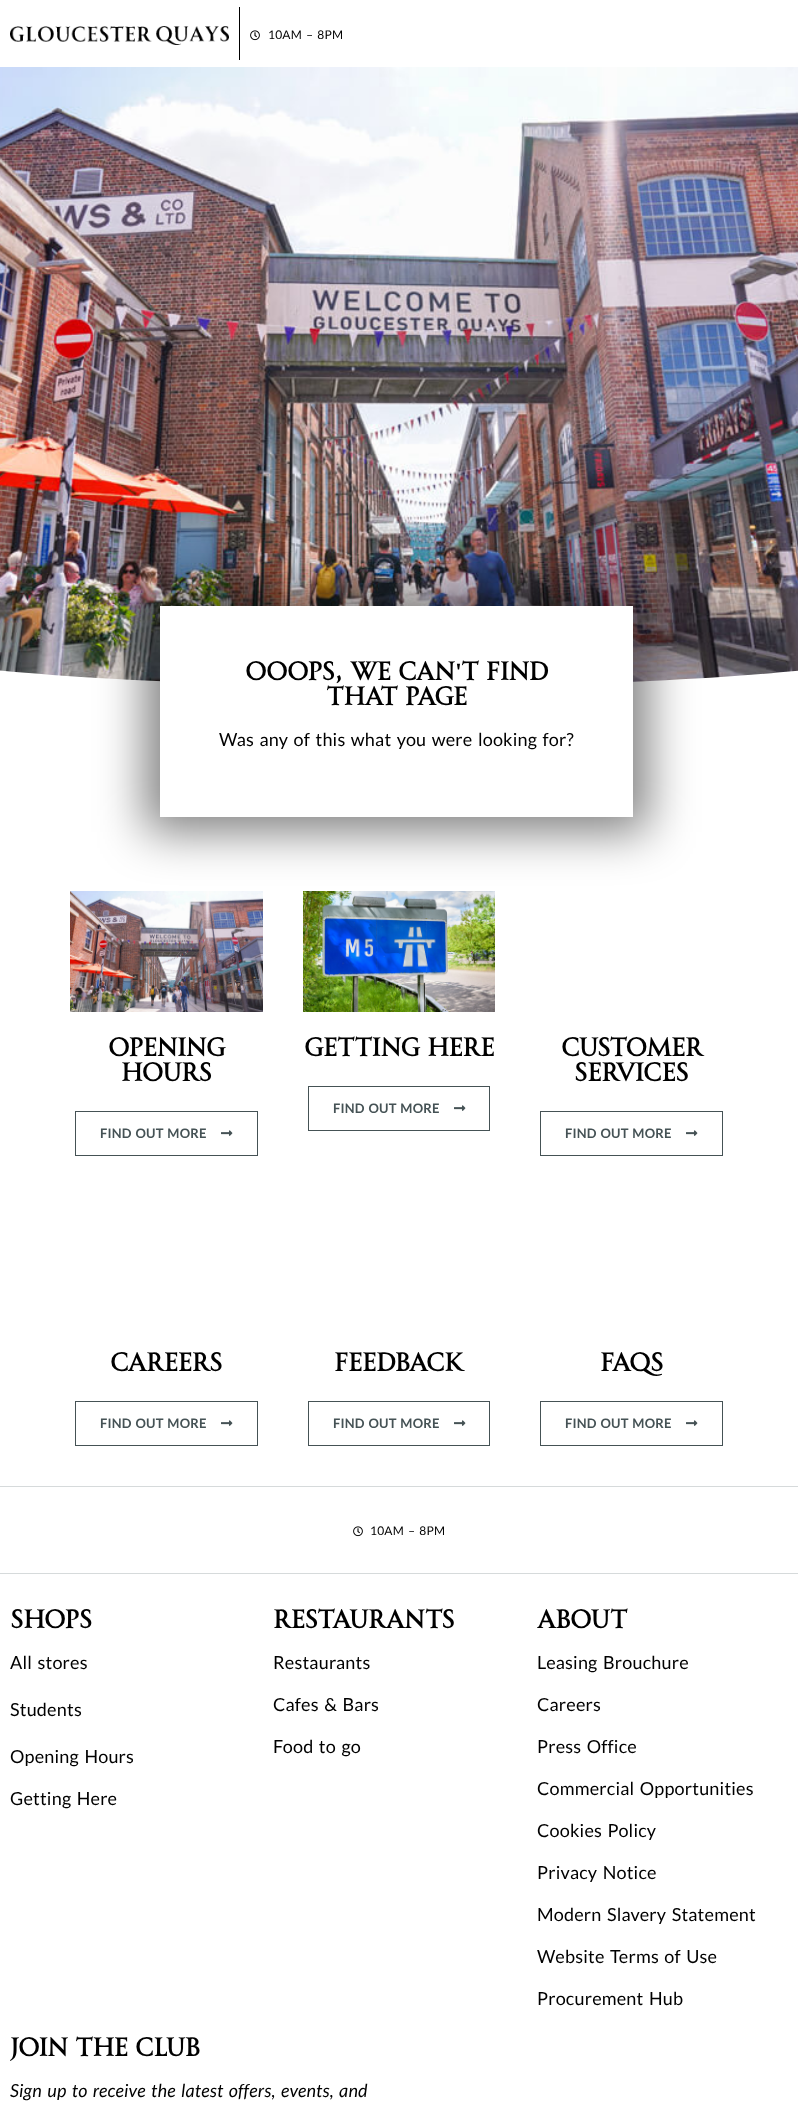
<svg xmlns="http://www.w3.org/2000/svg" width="798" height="2112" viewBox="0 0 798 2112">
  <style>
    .t1 { font: 12px Lato; letter-spacing: 0.2px; fill: #000; }
    .t2 { font: bold 25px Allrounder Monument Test; letter-spacing: -0.6px; fill: #000; }
    .t3 { font: bold 25px Liberation Serif; letter-spacing: -0.6px; fill: #000; }
    .t4 { font: 18px Lato; letter-spacing: 0.2px; fill: #000; }
    .t5 { font: bold 13px Lato; letter-spacing: 0.2px; fill: #455255; }
    .t6 { font: italic 18px Lato; letter-spacing: 0.2px; fill: #000; }
  </style>
  <rect width="100%" height="100%" fill="#fff"/>
  <image x="10" y="26" width="219" height="19" href="images/1.png"/>
  <rect x="239" y="7" width="1" height="53" fill="#000"/>
  <image x="250" y="30" width="10" height="11" href="images/2.png"/>
  <text x="268" y="39" word-spacing="1.75" class="t1">10AM – 8PM</text>
  <image x="0" y="67" width="798" height="615" href="images/3.png"/>
  <path d="M399 686C-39 686-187 645-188 634V688H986V635C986 644 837 687 399 686Z" fill="#fff"/>
  <image x="70" y="891" width="193" height="121" href="images/4.png"/>
  <image x="303" y="891" width="192" height="121" href="images/6.png"/>
  <rect x="145" y="591" width="503" height="241" fill="#00000080" filter="blur(23.5px)"/>
  <rect x="160" y="606" width="473" height="211" fill="#fff"/>
  <text x="245" y="680" word-spacing="1.75" class="t2">Ooops, we can</text>
  <text x="455" y="680" class="t3">'</text>
  <text x="461" y="680" word-spacing="1.75" class="t2">t find</text>
  <text x="326" y="705" word-spacing="1.75" class="t2">that page</text>
  <text x="219" y="746" word-spacing="1.75" class="t4">Was any of this what you were looking for?</text>
  <text x="108" y="1056" class="t2">Opening</text>
  <text x="121" y="1081" class="t2">hours</text>
  <rect x="75.5" y="1111.5" width="182" height="44" fill="none" stroke="#455255"/>
  <text x="100" y="1138" word-spacing="1" class="t5">FIND OUT MORE</text>
  <image x="221" y="1130" width="12" height="6" href="images/5.png"/>
  <text x="304" y="1056" word-spacing="1.75" class="t2">Getting here</text>
  <rect x="308.5" y="1086.5" width="181" height="44" fill="none" stroke="#455255"/>
  <text x="333" y="1113" word-spacing="1" class="t5">FIND OUT MORE</text>
  <image x="454" y="1105" width="12" height="6" href="images/5.png"/>
  <text x="561" y="1056" class="t2">Customer</text>
  <text x="574" y="1081" class="t2">services</text>
  <rect x="540.5" y="1111.5" width="182" height="44" fill="none" stroke="#455255"/>
  <text x="565" y="1138" word-spacing="1" class="t5">FIND OUT MORE</text>
  <image x="686" y="1130" width="12" height="6" href="images/5.png"/>
  <text x="110" y="1371" class="t2">Careers</text>
  <rect x="75.5" y="1401.5" width="182" height="44" fill="none" stroke="#455255"/>
  <text x="100" y="1428" word-spacing="1" class="t5">FIND OUT MORE</text>
  <image x="221" y="1420" width="12" height="6" href="images/5.png"/>
  <text x="334" y="1371" class="t2">Feedback</text>
  <rect x="308.5" y="1401.5" width="181" height="44" fill="none" stroke="#455255"/>
  <text x="333" y="1428" word-spacing="1" class="t5">FIND OUT MORE</text>
  <image x="454" y="1420" width="12" height="6" href="images/5.png"/>
  <text x="600" y="1371" class="t2">FAQs</text>
  <rect x="540.5" y="1401.5" width="182" height="44" fill="none" stroke="#455255"/>
  <text x="565" y="1428" word-spacing="1" class="t5">FIND OUT MORE</text>
  <image x="686" y="1420" width="12" height="6" href="images/5.png"/>
  <rect x="0" y="1486" width="798" height="1" fill="#d6dadb"/>
  <rect x="0" y="1573" width="798" height="1" fill="#d6dadb"/>
  <image x="353" y="1526" width="10" height="11" href="images/2.png"/>
  <text x="370" y="1535" word-spacing="1.75" class="t1">10AM – 8PM</text>
  <text x="10" y="1628" class="t2">Shops</text>
  <text x="10" y="1669" word-spacing="1.75" class="t4">All stores</text>
  <text x="10" y="1716" class="t4">Students</text>
  <text x="10" y="1763" word-spacing="1.75" class="t4">Opening Hours</text>
  <text x="10" y="1805" word-spacing="1.75" class="t4">Getting Here</text>
  <text x="273" y="1628" class="t2">Restaurants</text>
  <text x="273" y="1669" class="t4">Restaurants</text>
  <text x="273" y="1711" word-spacing="1.75" class="t4">Cafes &amp; Bars</text>
  <text x="273" y="1753" word-spacing="1.75" class="t4">Food to go</text>
  <text x="537" y="1628" class="t2">About</text>
  <text x="537" y="1669" word-spacing="1.75" class="t4">Leasing Brouchure</text>
  <text x="537" y="1711" class="t4">Careers</text>
  <text x="537" y="1753" word-spacing="1.75" class="t4">Press Office</text>
  <text x="537" y="1795" word-spacing="1.75" class="t4">Commercial Opportunities</text>
  <text x="537" y="1837" word-spacing="1.75" class="t4">Cookies Policy</text>
  <text x="537" y="1879" word-spacing="1.75" class="t4">Privacy Notice</text>
  <text x="537" y="1921" word-spacing="1.75" class="t4">Modern Slavery Statement</text>
  <text x="537" y="1963" word-spacing="1.75" class="t4">Website Terms of Use</text>
  <text x="537" y="2005" word-spacing="1.75" class="t4">Procurement Hub</text>
  <text x="10" y="2056" word-spacing="1.75" class="t2">Join the club</text>
  <text x="10" y="2097" word-spacing="1.75" class="t6">Sign up to receive the latest offers, events, and</text>
</svg>
